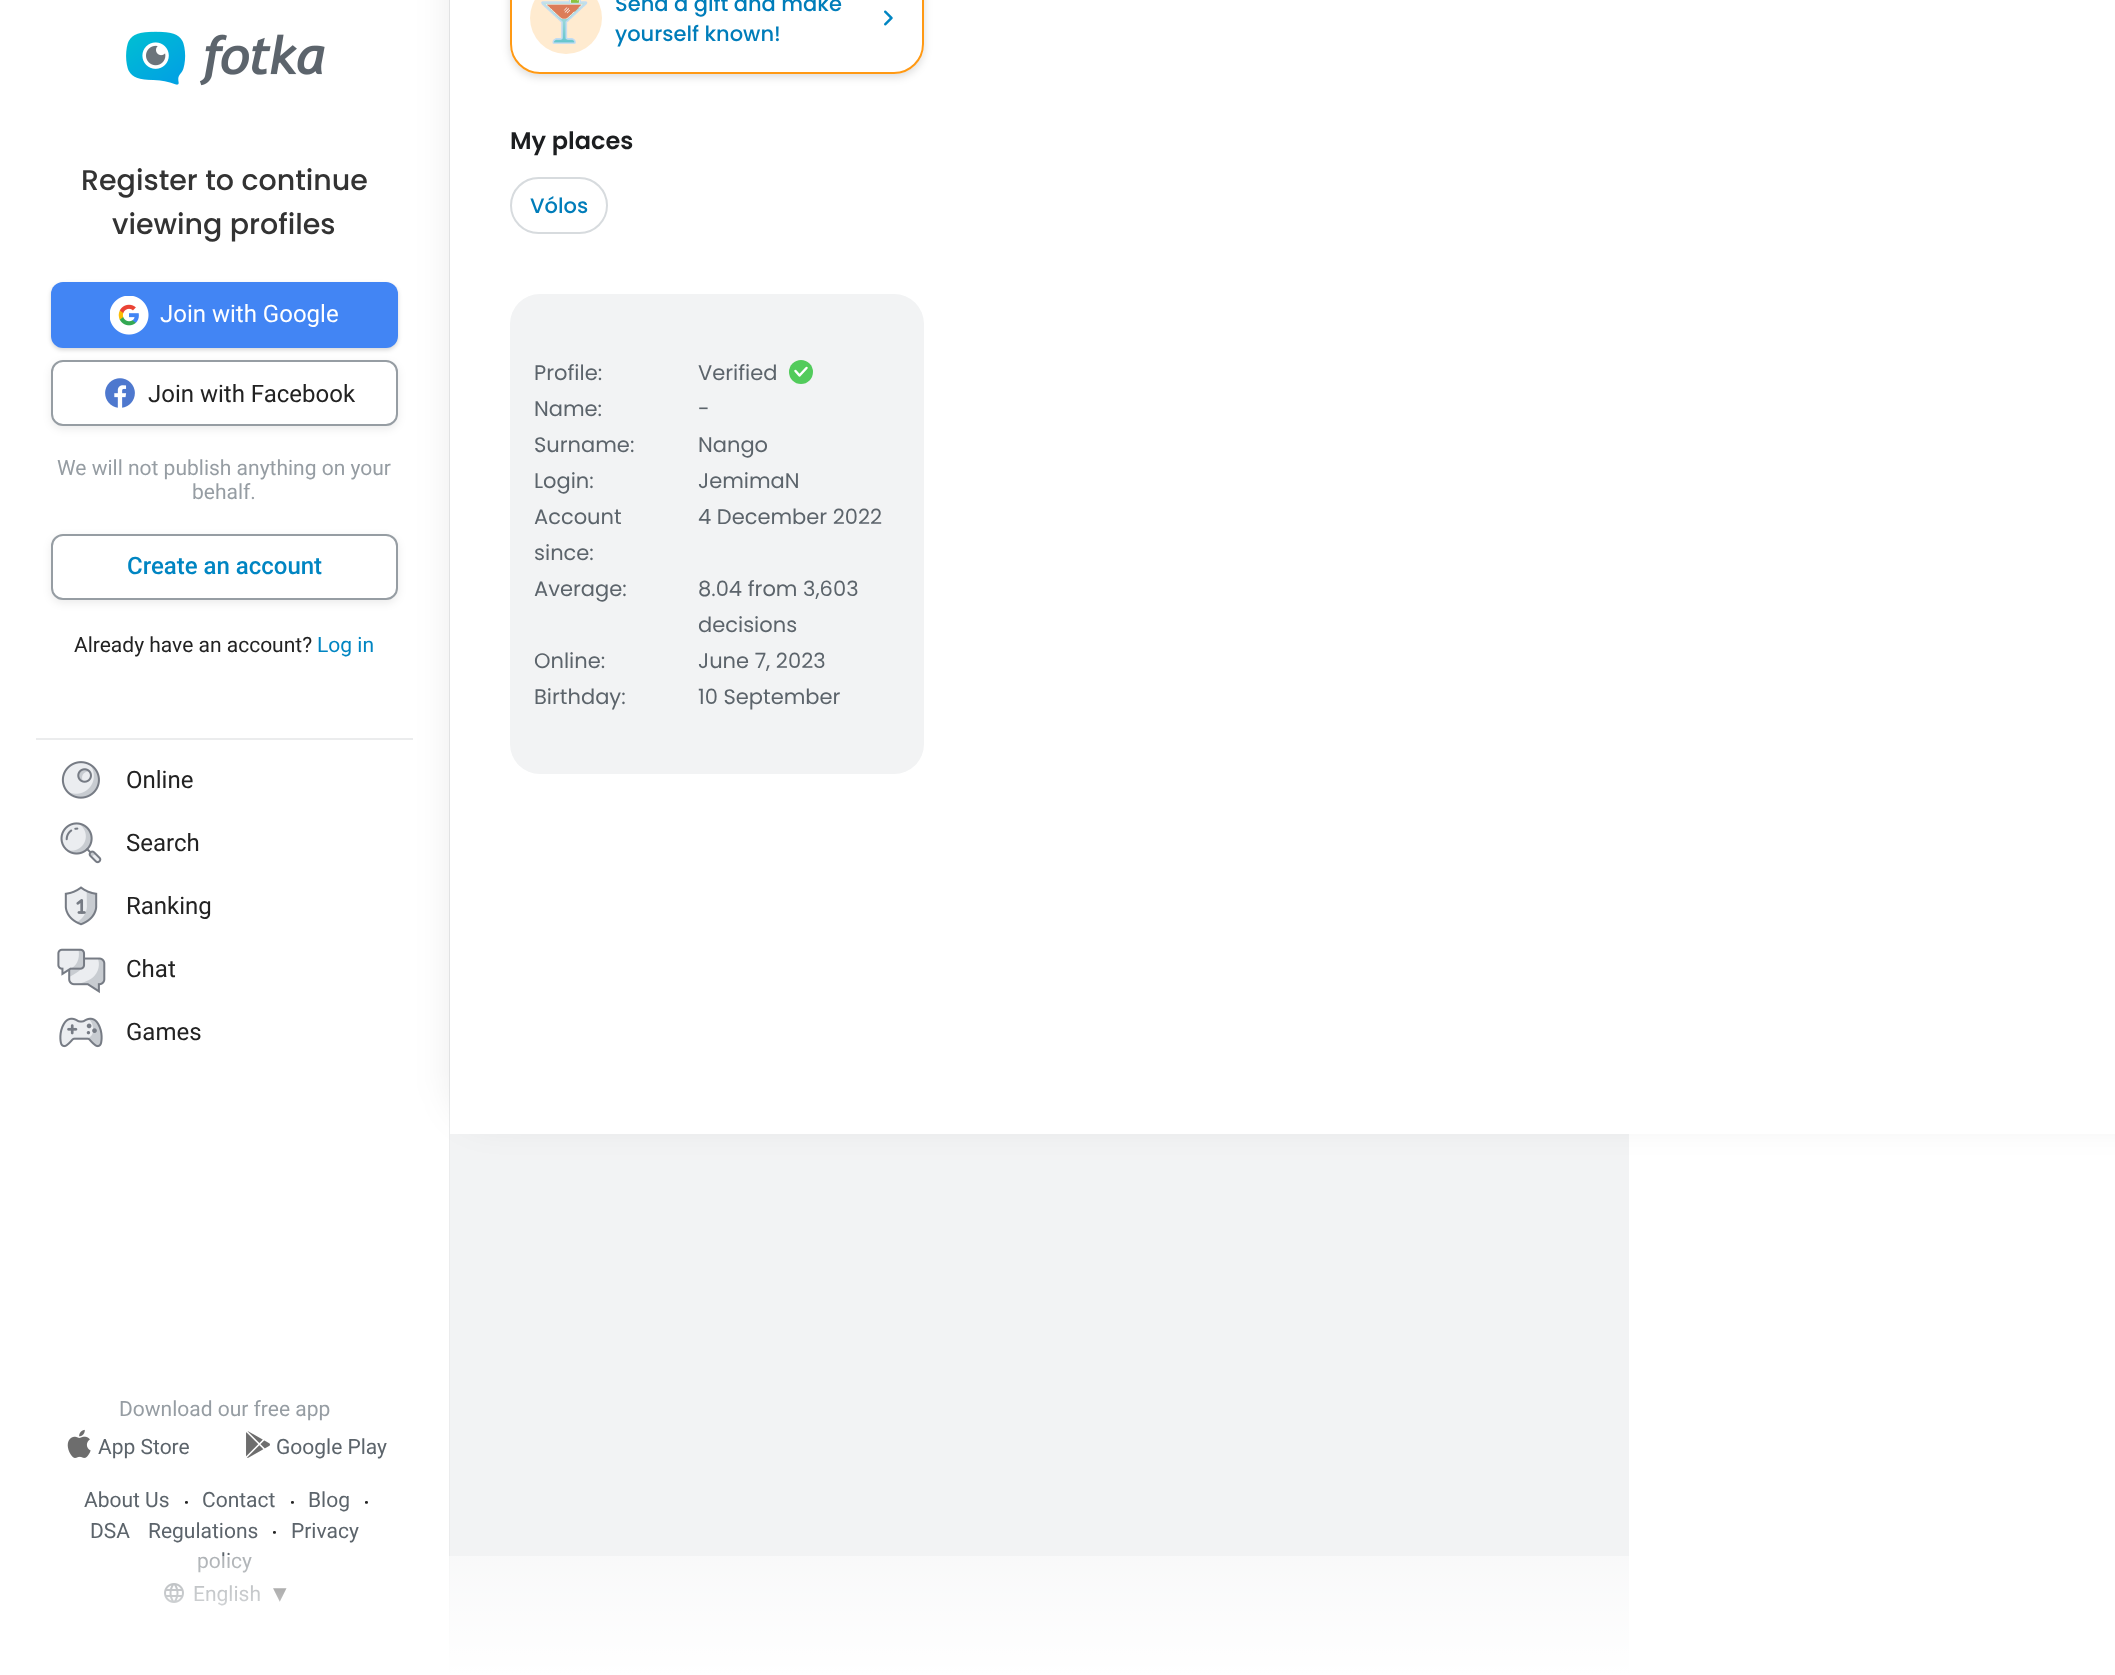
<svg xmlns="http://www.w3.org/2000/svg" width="2115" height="1675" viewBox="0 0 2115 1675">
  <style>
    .t1 { font: 500 28.5px Poppins; fill: #333; }
    .t2 { font: 24px Roboto; fill: #fff; }
    .t3 { font: 24px Roboto; fill: #222; }
    .t4 { font: 21px Roboto; fill: #969da3; }
    .t5 { font: 500 24px Roboto; fill: #0085c2; }
    .t6 { font: 21px Roboto; fill: #222; }
    .t7 { font: 21px Roboto; fill: #0085c2; }
    .t8 { font: 21px Roboto; fill: #5c646b; }
    .t9 { font: 27px Roboto; fill: #222; }
    .t10 { font: 27px DejaVu Sans; fill: #222; }
    .t11 { font: 500 21px Poppins; fill: #007dba; }
    .t12 { font: 600 24px Poppins; fill: #1c1e20; }
    .t13 { font: 21px Poppins; fill: #5c646b; }
  </style>
  <defs>
    <clipPath id="clip1"><path d="M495 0H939V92H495ZM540-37H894C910.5-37 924-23.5 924-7V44C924 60.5 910.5 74 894 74H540C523.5 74 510 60.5 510 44V-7C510-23.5 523.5-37 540-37Z" clip-rule="evenodd"/></clipPath>
    <linearGradient id="g1" gradientUnits="userSpaceOnUse" x1="1058" y1="1556" x2="1058" y2="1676"><stop offset="0" stop-color="#fff" stop-opacity="0.5"/><stop offset="1" stop-color="#fff"/></linearGradient>
  </defs>
  <rect width="100%" height="100%" fill="#fff"/>
  <rect x="449" y="0" width="1" height="1675" fill="#ebeced"/>
  <image x="126" y="31" width="199" height="55" href="images/1.png"/>
  <text x="81" y="190" class="t1">Register to continue</text>
  <text x="112" y="234" class="t1">viewing profiles</text>
  <rect x="51" y="284" width="347" height="66" rx="12" fill="#00000029" filter="blur(2px)"/>
  <rect x="51" y="282" width="347" height="66" rx="12" fill="#4285f4"/>
  <image x="110" y="296" width="39" height="39" href="images/2.png"/>
  <text x="160" y="322" class="t2">Join with Google</text>
  <rect x="51" y="363" width="347" height="66" rx="12" fill="#00000014" filter="blur(4.5px)"/>
  <rect x="52" y="361" width="345" height="64" rx="11" fill="#fff" stroke="#969da3" stroke-width="2"/>
  <image x="105" y="378" width="30" height="30" href="images/3.png"/>
  <text x="148" y="402" class="t3">Join with Facebook</text>
  <text x="57" y="475" class="t4">We will not publish anything on your</text>
  <text x="192" y="499" class="t4">behalf.</text>
  <rect x="51" y="537" width="347" height="66" rx="12" fill="#00000014" filter="blur(4.5px)"/>
  <rect x="52" y="535" width="345" height="64" rx="11" fill="#fff" stroke="#969da3" stroke-width="2"/>
  <text x="127" y="574" class="t5">Create an account</text>
  <text x="74" y="652" class="t6">Already have an account?</text>
  <text x="317" y="652" class="t7">Log in</text>
  <rect x="36" y="738" width="377" height="2" fill="#ebeced"/>
  <image x="61" y="761" width="39" height="38" href="images/4.png"/>
  <text x="126" y="788" class="t3">Online</text>
  <image x="60" y="822" width="42" height="42" href="images/5.png"/>
  <text x="126" y="851" class="t3">Search</text>
  <image x="64" y="886" width="34" height="40" href="images/6.png"/>
  <text x="126" y="914" class="t3">Ranking</text>
  <image x="57" y="948" width="49" height="46" href="images/7.png"/>
  <text x="126" y="977" class="t3">Chat</text>
  <image x="59" y="1017" width="44" height="31" href="images/8.png"/>
  <text x="126" y="1040" class="t3">Games</text>
  <text x="119" y="1416" class="t4">Download our free app</text>
  <image x="67" y="1429" width="24" height="29" href="images/9.png"/>
  <text x="98" y="1454" class="t8">App Store</text>
  <image x="246" y="1431" width="24" height="27" href="images/10.png"/>
  <text x="276" y="1454" class="t8">Google Play</text>
  <text x="84" y="1507" class="t8">About Us</text>
  <text x="183" y="1512" class="t9">·</text>
  <text x="202" y="1507" class="t8">Contact</text>
  <text x="289" y="1512" class="t9">·</text>
  <text x="308" y="1507" class="t8">Blog</text>
  <text x="363" y="1512" class="t9">·</text>
  <text x="90" y="1538" class="t8">DSA</text>
  <text x="148" y="1538" class="t8">Regulations</text>
  <text x="271" y="1542" class="t9">·</text>
  <text x="291" y="1538" class="t8">Privacy</text>
  <text x="197" y="1568" class="t8">policy</text>
  <image x="164" y="1583" width="20" height="20" href="images/11.png"/>
  <text x="193" y="1601" class="t8">English</text>
  <text x="273" y="1602" class="t10">▾</text>
  <rect x="450" y="1134" width="1179" height="541" fill="#f2f3f4"/>
  <rect x="450" y="-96" width="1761" height="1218" rx="42" fill="#00000014" filter="blur(18px)"/>
  <rect x="450" y="0" width="1665" height="1134" fill="#fff"/>
  <g clip-path="url(#clip1)">
    <rect x="510" y="-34" width="414" height="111" rx="30" fill="#00000024" filter="blur(4.5px)"/>
  </g>
  <rect x="511" y="-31" width="412" height="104" rx="29" fill="none" stroke="#ff9914" stroke-width="2"/>
  <circle cx="566" cy="18" r="36" fill="#ffebd0"/>
  <image x="541" y="0" width="47" height="44" href="images/12.png"/>
  <text x="615" y="11" class="t11">Send a gift and make</text>
  <text x="615" y="41" class="t11">yourself known!</text>
  <image x="884" y="10" width="9" height="16" href="images/13.png"/>
  <text x="510" y="149" class="t12">My places</text>
  <rect x="511" y="178" width="96" height="55" rx="27.5" fill="none" stroke="#d7dbde" stroke-width="2"/>
  <text x="530" y="213" class="t11">Vólos</text>
  <rect x="510" y="294" width="414" height="480" rx="30" fill="#f2f3f4"/>
  <text x="534" y="380" class="t13">Profile:</text>
  <text x="698" y="380" class="t13">Verified</text>
  <circle cx="801" cy="372" r="12" fill="#52cb5b"/>
  <path d="M795.5 371L799.5 375.5L806.5 368" fill="none" stroke="#fff" stroke-width="2.5" stroke-linecap="round" stroke-linejoin="round"/>
  <text x="534" y="416" class="t13">Name:</text>
  <text x="698" y="416" class="t13">-</text>
  <text x="534" y="452" class="t13">Surname:</text>
  <text x="698" y="452" class="t13">Nango</text>
  <text x="534" y="488" class="t13">Login:</text>
  <text x="698" y="488" class="t13">JemimaN</text>
  <text x="534" y="524" class="t13">Account</text>
  <text x="534" y="560" class="t13">since:</text>
  <text x="698" y="524" class="t13">4 December 2022</text>
  <text x="534" y="596" class="t13">Average:</text>
  <text x="698" y="596" class="t13">8.04 from 3,603</text>
  <text x="698" y="632" class="t13">decisions</text>
  <text x="534" y="668" class="t13">Online:</text>
  <text x="698" y="668" class="t13">June 7, 2023</text>
  <text x="534" y="704" class="t13">Birthday:</text>
  <text x="698" y="704" class="t13">10 September</text>
  <rect x="164" y="1556" width="1465" height="119" fill="url(#g1)"/>
</svg>
